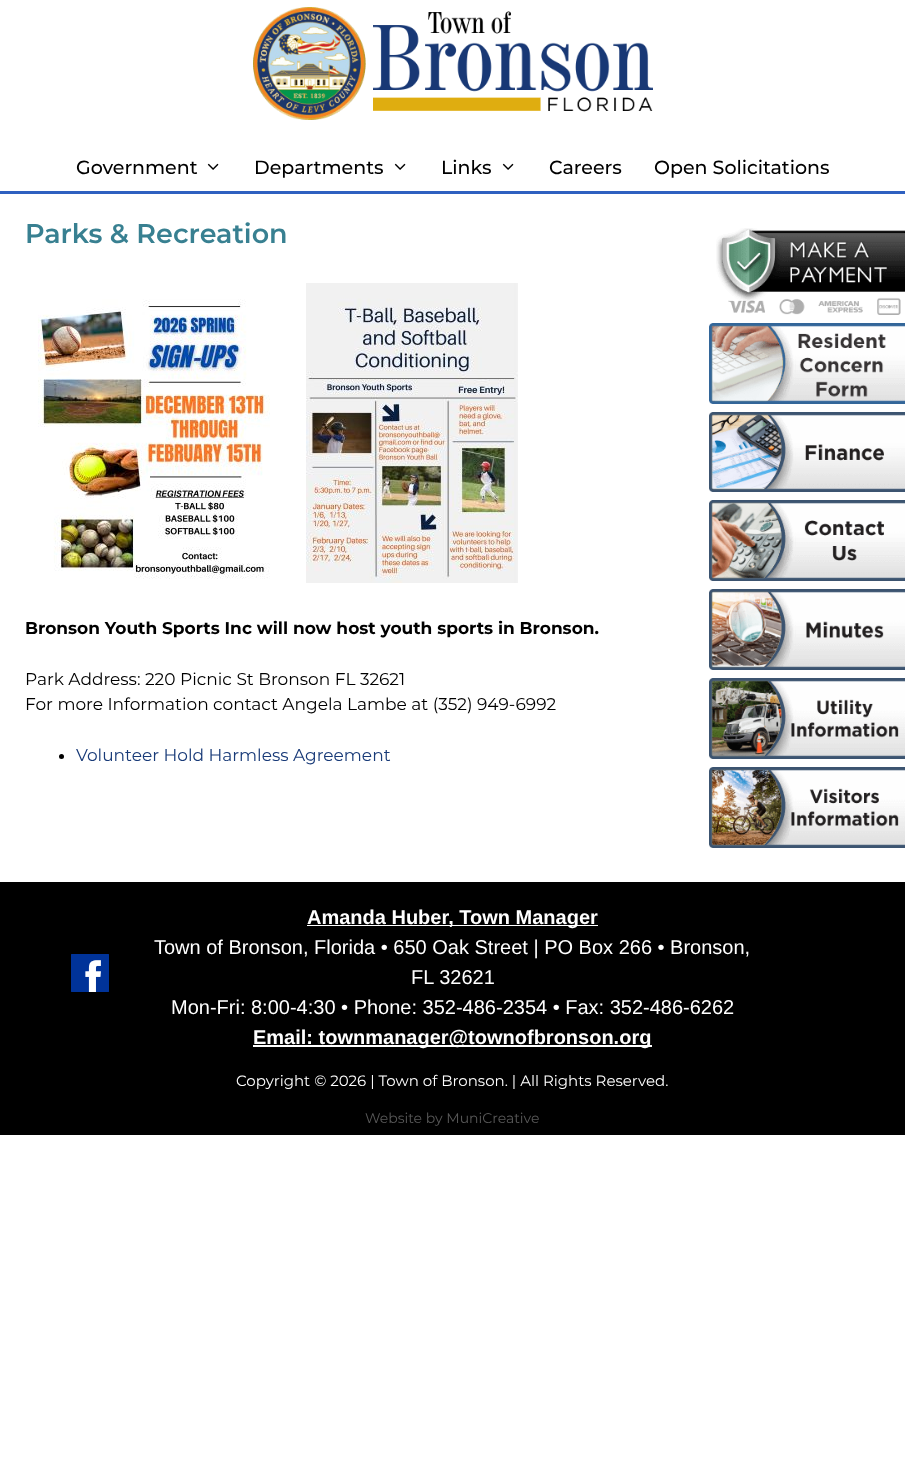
<svg xmlns="http://www.w3.org/2000/svg" width="905" height="1465" viewBox="0 0 905 1465">
  <style>
    .t1 { font: 500 19px Montserrat; fill: #000; }
    .t2 { font: 600 27px Montserrat; fill: #388091; }
    .t3 { font: bold 17px Montserrat; fill: #000; }
    .t4 { font: 17px Montserrat; fill: #000; }
    .t5 { font: 17px Montserrat; fill: #183a78; }
    .t6 { font: bold 20px Liberation Sans; fill: #fff; }
    .t7 { font: 20px Liberation Sans; fill: #fff; }
    .t8 { font: 15px Montserrat; fill: #fff; }
    .t9 { font: 14px Montserrat; fill: #595959; }
  </style>
  <rect width="100%" height="100%" fill="#fff"/>
  <rect x="0" y="191" width="905" height="3" fill="#2f60c0"/>
  <image x="253" y="7" width="400" height="113" href="images/1.png"/>
  <text x="76" y="174" class="t1">Government</text>
  <image x="207" y="163" width="12" height="7" href="images/2.png"/>
  <text x="254" y="174" class="t1">Departments</text>
  <image x="394" y="163" width="12" height="7" href="images/2.png"/>
  <text x="441" y="174" class="t1">Links</text>
  <image x="502" y="163" width="12" height="7" href="images/2.png"/>
  <text x="549" y="174" class="t1">Careers</text>
  <text x="654" y="174" class="t1">Open Solicitations</text>
  <text x="25" y="243" class="t2">Parks &amp; Recreation</text>
  <image x="38" y="299" width="232" height="280" href="images/3.png"/>
  <image x="306" y="283" width="212" height="300" href="images/4.png"/>
  <text x="25" y="634" class="t3">Bronson Youth Sports Inc will now host youth sports in Bronson.</text>
  <text x="25" y="685" class="t4">Park Address: 220 Picnic St Bronson FL 32621</text>
  <text x="25" y="710" class="t4">For more Information contact Angela Lambe at (352) 949-6992</text>
  <circle cx="61.5" cy="756.5" r="2.5" fill="#000"/>
  <text x="76" y="761" class="t5">Volunteer Hold Harmless Agreement</text>
  <image x="716" y="228" width="189" height="87" href="images/5.png"/>
  <image x="709" y="323" width="196" height="81" href="images/6.png"/>
  <image x="709" y="412" width="196" height="80" href="images/7.png"/>
  <image x="709" y="500" width="196" height="81" href="images/8.png"/>
  <image x="709" y="589" width="196" height="81" href="images/9.png"/>
  <image x="709" y="678" width="196" height="81" href="images/10.png"/>
  <image x="709" y="767" width="196" height="81" href="images/11.png"/>
  <rect x="0" y="882" width="905" height="253" fill="#000"/>
  <image x="71" y="954" width="38" height="38" href="images/12.png"/>
  <rect x="307" y="925" width="291" height="1" fill="#fff"/>
  <text x="307" y="924" class="t6">Amanda Huber, Town Manager</text>
  <text x="154" y="954" class="t7">Town of Bronson, Florida • 650 Oak Street | PO Box 266 • Bronson,</text>
  <text x="411" y="984" class="t7">FL 32621</text>
  <text x="171" y="1014" class="t7">Mon-Fri: 8:00-4:30 • Phone: 352-486-2354 • Fax: 352-486-6262</text>
  <rect x="253" y="1045" width="399" height="2" fill="#fff"/>
  <text x="253" y="1044" class="t6">Email: townmanager@townofbronson.org</text>
  <text x="236" y="1086" class="t8">Copyright © 2026 | Town of Bronson. | All Rights Reserved.</text>
  <text x="365" y="1123" class="t9">Website by MuniCreative</text>
</svg>
